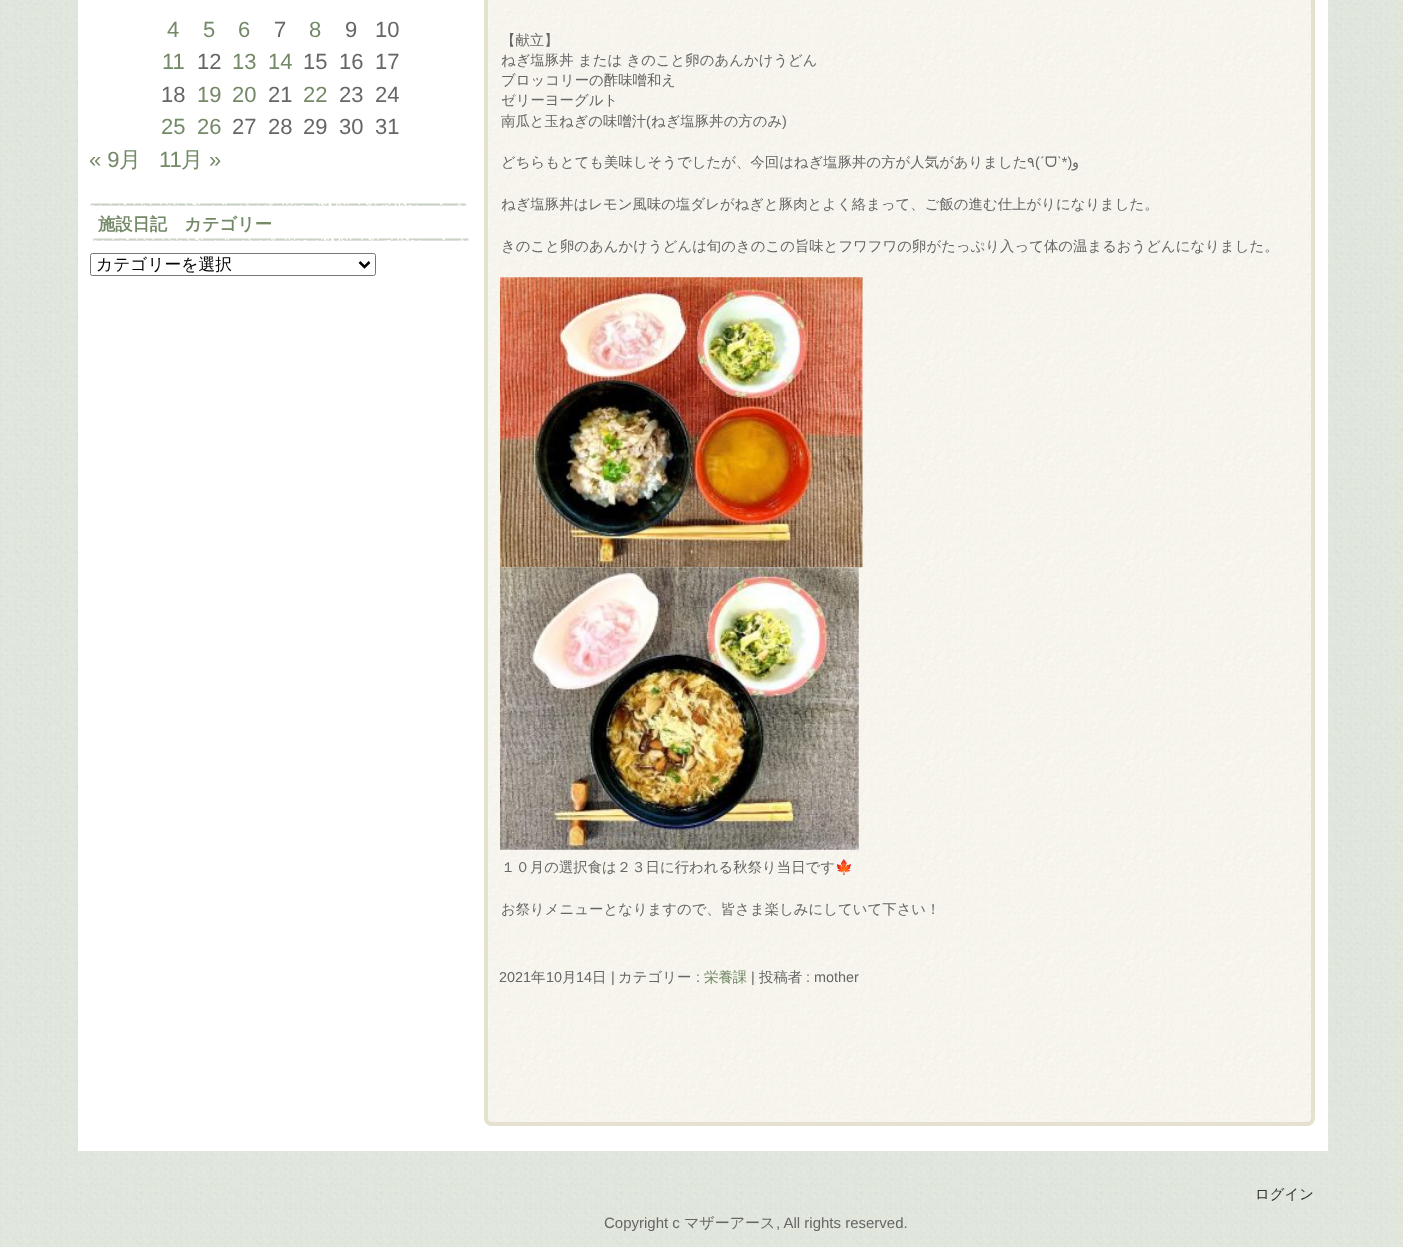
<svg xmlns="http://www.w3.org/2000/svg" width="1403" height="1247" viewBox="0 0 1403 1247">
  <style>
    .t1 { font: 22px Liberation Sans; fill: #738967; }
    .t2 { font: 22px Liberation Sans; fill: #666; }
    .t3 { font: 500 22px WenQuanYi Zen Hei; fill: #738967; }
    .t4 { font: bold 17.25px WenQuanYi Zen Hei; fill: #738967; }
    .t5 { font: 500 16.75px WenQuanYi Zen Hei; fill: #000; }
    .t6 { font: 500 14.4px WenQuanYi Zen Hei; fill: #666; }
    .t7 { font: 14.4px Liberation Sans; fill: #666; }
    .t8 { font: 14.4px DejaVu Sans; fill: #666; }
    .t9 { font: 14.4px FreeSans; fill: #666; }
    .t10 { font: 14.4px DejaVu Sans; direction: rtl; fill: #666; }
    .t11 { font: 14.4px Noto Color Emoji; fill: #666; }
    .t12 { font: 500 14.4px WenQuanYi Zen Hei; fill: #738967; }
    .t13 { font: 500 14.4px WenQuanYi Zen Hei; fill: #333; }
    .t14 { font: 15px Liberation Sans; fill: #666; }
    .t15 { font: 500 15px WenQuanYi Zen Hei; fill: #666; }
  </style>
  <rect width="100%" height="100%" fill="#fff"/>
  <image x="0" y="0" width="1403" height="1247" href="images/1.png"/>
  <rect x="78" y="0" width="1250" height="1151" fill="#fff"/>
  <text x="167" y="37" class="t1">4</text>
  <text x="203" y="37" class="t1">5</text>
  <text x="238" y="37" class="t1">6</text>
  <text x="274" y="37" class="t2">7</text>
  <text x="309" y="37" class="t1">8</text>
  <text x="345" y="37" class="t2">9</text>
  <text x="375" y="37" class="t2">10</text>
  <text x="162" y="69" class="t1">11</text>
  <text x="197" y="69" class="t2">12</text>
  <text x="232" y="69" class="t1">13</text>
  <text x="268" y="69" class="t1">14</text>
  <text x="303" y="69" class="t2">15</text>
  <text x="339" y="69" class="t2">16</text>
  <text x="375" y="69" class="t2">17</text>
  <text x="161" y="102" class="t2">18</text>
  <text x="197" y="102" class="t1">19</text>
  <text x="232" y="102" class="t1">20</text>
  <text x="268" y="102" class="t2">21</text>
  <text x="303" y="102" class="t1">22</text>
  <text x="339" y="102" class="t2">23</text>
  <text x="375" y="102" class="t2">24</text>
  <text x="161" y="134" class="t1">25</text>
  <text x="197" y="134" class="t1">26</text>
  <text x="232" y="134" class="t2">27</text>
  <text x="268" y="134" class="t2">28</text>
  <text x="303" y="134" class="t2">29</text>
  <text x="339" y="134" class="t2">30</text>
  <text x="375" y="134" class="t2">31</text>
  <text x="89" y="167" class="t1">« 9</text>
  <text x="119" y="167" class="t3">月</text>
  <text x="159" y="167" class="t1">11</text>
  <text x="181" y="167" class="t3">月</text>
  <text x="209" y="167" class="t1">»</text>
  <image x="90" y="203" width="377" height="3" href="images/2.png"/>
  <image x="92" y="238" width="377" height="3" href="images/3.png"/>
  <text x="98" y="230" class="t4">施設日記　カテゴリー</text>
  <rect x="90.5" y="253.5" width="285" height="22" rx="2" fill="none" stroke="#767676"/>
  <path d="M359.5 262L364.5 267L369.5 262" fill="none" stroke="#000" stroke-width="2.5"/>
  <text x="96" y="270" class="t5">カテゴリーを選択</text>
  <image x="484" y="0" width="831" height="1126" href="images/4.png"/>
  <rect x="486" y="-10" width="827" height="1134" rx="6" fill="none" stroke="#e5e1cf" stroke-width="4"/>
  <text x="501" y="45" class="t6">【献立】</text>
  <text x="501" y="65" class="t6">ねぎ塩豚丼 または きのこと卵のあんかけうどん</text>
  <text x="501" y="85" class="t6">ブロッコリーの酢味噌和え</text>
  <text x="501" y="105" class="t6">ゼリーヨーグルト</text>
  <text x="501" y="126" class="t6">南瓜と玉ねぎの味噌汁</text>
  <text x="646" y="126" class="t7">(</text>
  <text x="651" y="126" class="t6">ねぎ塩豚丼の方のみ</text>
  <text x="782" y="126" class="t7">)</text>
  <text x="501" y="167" class="t6">どちらもとても美味しそうでしたが、今回はねぎ塩豚丼の方が人気がありました</text>
  <text x="1027" y="167" class="t8">٩</text>
  <text x="1035" y="167" class="t7">(ˊ</text>
  <text x="1045" y="167" class="t9">ᗜ</text>
  <text x="1057" y="167" class="t7">ˋ*)</text>
  <text x="1079" y="167" class="t10">و</text>
  <text x="501" y="209" class="t6">ねぎ塩豚丼はレモン風味の塩ダレがねぎと豚肉とよく絡まって、ご飯の進む仕上がりになりました。</text>
  <text x="501" y="251" class="t6">きのこと卵のあんかけうどんは旬のきのこの旨味とフワフワの卵がたっぷり入って体の温まるおうどんになりました。</text>
  <image x="500" y="277" width="363" height="291" href="images/5.png"/>
  <image x="500" y="567" width="359" height="283" href="images/6.png"/>
  <text x="501" y="872" class="t6">１０月の選択食は２３日に行われる秋祭り当日です</text>
  <text x="835" y="872" class="t11">🍁</text>
  <text x="501" y="914" class="t6">お祭りメニューとなりますので、皆さま楽しみにしていて下さい！</text>
  <text x="499" y="982" class="t7">2021</text>
  <text x="531" y="982" class="t6">年</text>
  <text x="546" y="982" class="t7">10</text>
  <text x="562" y="982" class="t6">月</text>
  <text x="576" y="982" class="t7">14</text>
  <text x="592" y="982" class="t6">日</text>
  <text x="611" y="982" class="t7">|</text>
  <text x="618" y="982" class="t6">カテゴリー</text>
  <text x="696" y="982" class="t7">:</text>
  <text x="704" y="982" class="t12">栄養課</text>
  <text x="751" y="982" class="t7">|</text>
  <text x="759" y="982" class="t6">投稿者</text>
  <text x="806" y="982" class="t7">: mother</text>
  <text x="1255" y="1199" class="t13">ログイン</text>
  <text x="604" y="1228" class="t14">Copyright c</text>
  <text x="684" y="1228" class="t15">マザーアース</text>
  <text x="776" y="1228" class="t14">, All rights reserved.</text>
</svg>
